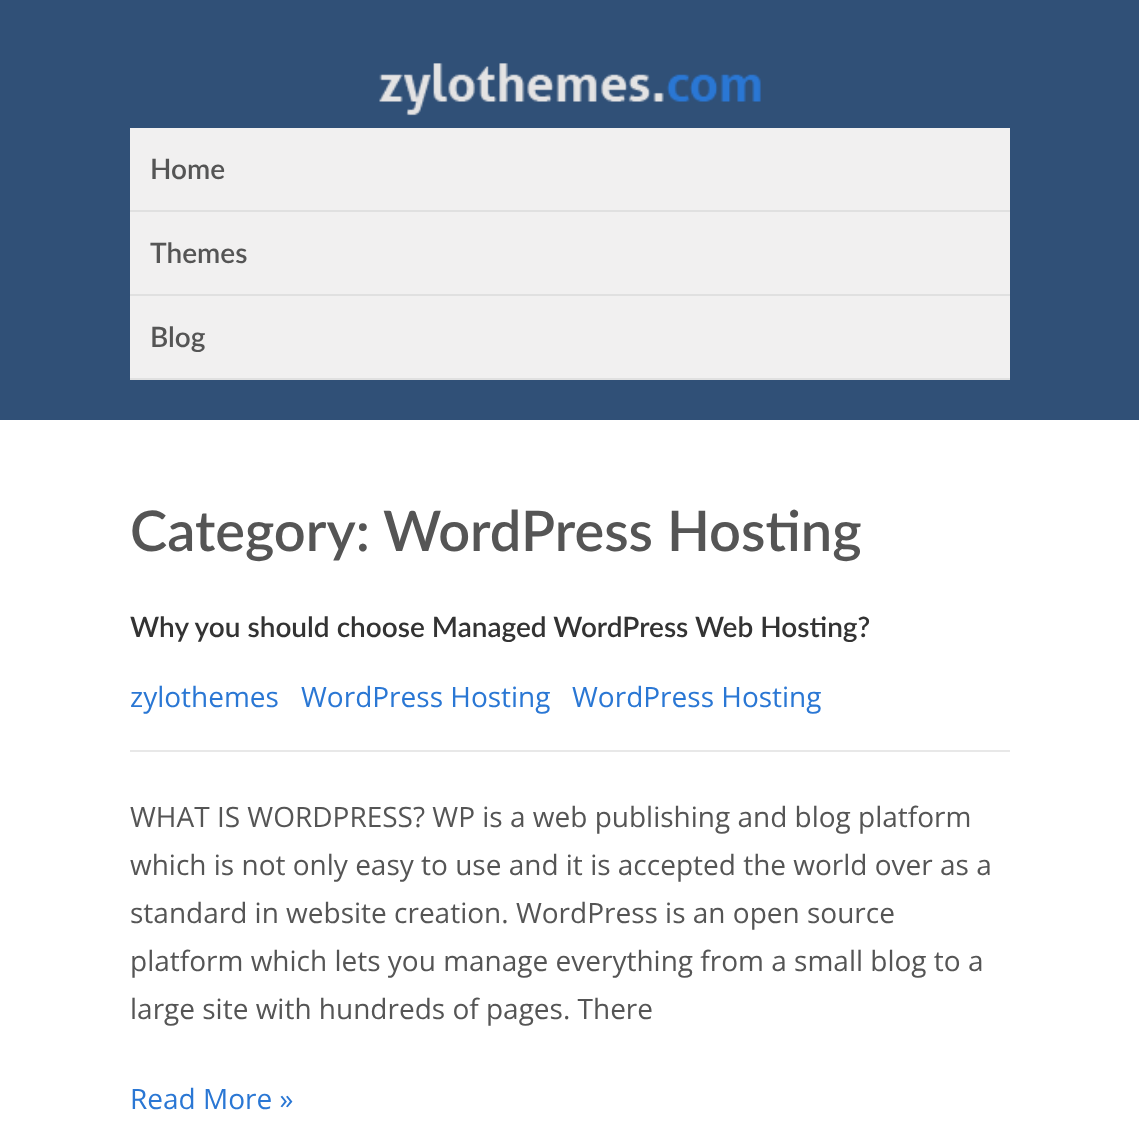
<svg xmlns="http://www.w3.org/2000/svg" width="1139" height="1146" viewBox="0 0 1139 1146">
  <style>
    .t1 { font: 600 28px Lato; fill: #555; }
    .t2 { font: 600 56px Lato; fill: #555; }
    .t3 { font: 600 28px Lato; fill: #333; }
    .t4 { font: 28px Open Sans; fill: #2a77d4; }
    .t5 { font: 28px Open Sans; fill: #555; }
  </style>
  <rect width="100%" height="100%" fill="#fff"/>
  <rect x="0" y="0" width="1139" height="420" fill="#305077"/>
  <image x="379" y="63" width="382" height="53" href="images/1.png"/>
  <rect x="130" y="128" width="880" height="250" fill="#f1f0f0"/>
  <rect x="130" y="210" width="880" height="2" fill="#e0e0e0"/>
  <text x="150" y="179" class="t1">Home</text>
  <rect x="130" y="294" width="880" height="2" fill="#e0e0e0"/>
  <text x="150" y="263" class="t1">Themes</text>
  <rect x="130" y="378" width="880" height="2" fill="#e0e0e0"/>
  <text x="150" y="347" class="t1">Blog</text>
  <text x="130" y="551" class="t2">Category:</text>
  <text x="383" y="551" class="t2">WordPress Hosting</text>
  <text x="130" y="637" class="t3">Why you should choose Managed WordPress Web Hosting?</text>
  <rect x="130" y="750" width="880" height="2" fill="#e8e8e8"/>
  <text x="130" y="707" class="t4">zylothemes</text>
  <text x="301" y="707" class="t4">WordPress Hosting</text>
  <text x="572" y="707" class="t4">WordPress Hosting</text>
  <text x="130" y="827" class="t5">WHAT IS WORDPRESS? WP is a web publishing and blog platform</text>
  <text x="130" y="875" class="t5">which is not only easy to use and it is accepted the world over as a</text>
  <text x="130" y="923" class="t5">standard in website creation. WordPress is an open source</text>
  <text x="130" y="971" class="t5">platform which lets you manage everything from a small blog to a</text>
  <text x="130" y="1019" class="t5">large site with hundreds of pages. There</text>
  <text x="130" y="1109" class="t4">Read More »</text>
</svg>
